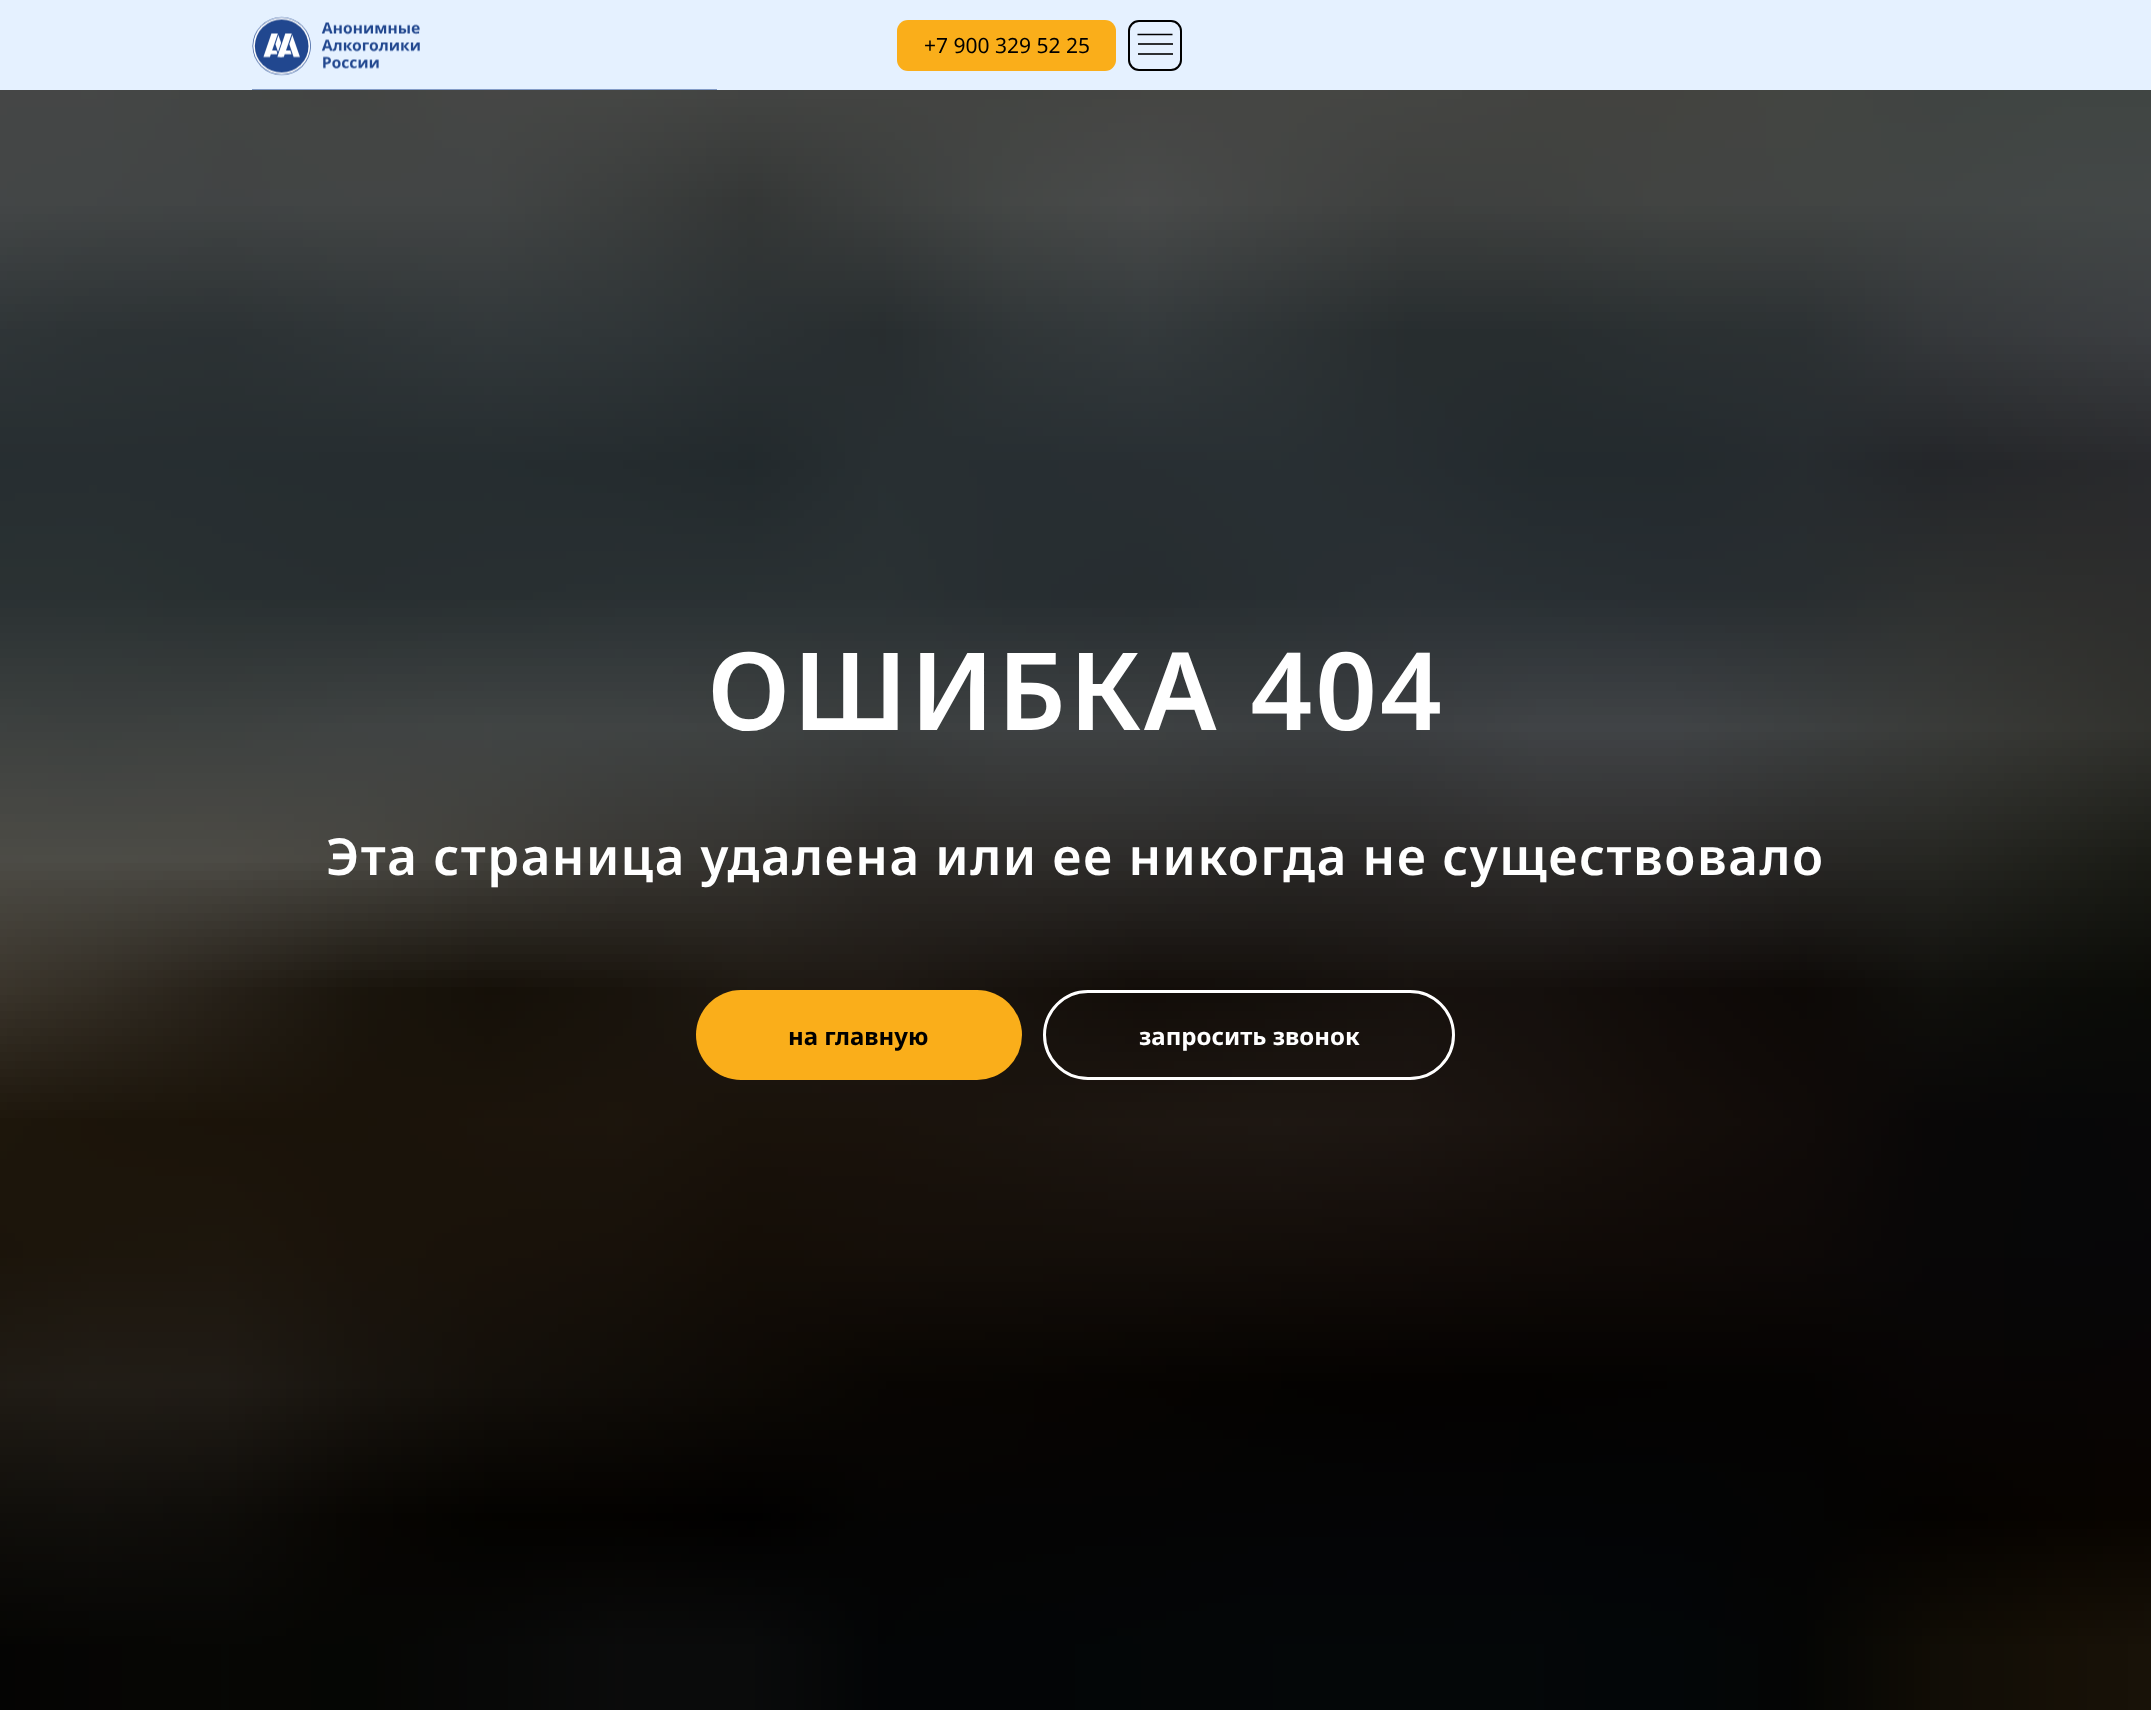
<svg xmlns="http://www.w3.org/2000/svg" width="2151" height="1710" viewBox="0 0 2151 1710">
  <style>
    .t1 { font: 21px Noto Sans; fill: #000; }
    .t2 { font: 600 108px Noto Sans; letter-spacing: 3px; fill: #fff; }
    .t3 { font: 600 51px Noto Sans; letter-spacing: 1.5px; fill: #fff; }
    .t4 { font: bold 24px Noto Sans; fill: #000; }
    .t5 { font: bold 24px Noto Sans; fill: #fff; }
  </style>
  <rect width="100%" height="100%" fill="#fff"/>
  <rect x="0" y="0" width="2151" height="90" fill="#e5f1ff"/>
  <image x="252" y="16" width="168" height="60" href="images/1.png"/>
  <rect x="897" y="20" width="219" height="51" rx="11" fill="#faae1a"/>
  <text x="924" y="53" class="t1">+7 900 329 52 25</text>
  <path d="M1137.5 34.5H1172.5" fill="none" stroke="#000" stroke-width="1.6"/>
  <rect x="1138" y="43" width="35" height="2" fill="#2e3033"/>
  <rect x="1138" y="53" width="35" height="2" fill="#2e3033"/>
  <rect x="1129" y="21" width="52" height="49" rx="10" fill="none" stroke="#000" stroke-width="2"/>
  <rect x="252" y="89" width="465" height="1" fill="#839cc7"/>
  <image x="0" y="90" width="2151" height="1620" href="images/2.png"/>
  <text x="707" y="730" class="t2">ОШИБКА 404</text>
  <text x="326" y="875" class="t3">Эта страница удалена или ее никогда не существовало</text>
  <rect x="696" y="990" width="326" height="90" rx="45" fill="#faae1a"/>
  <text x="788" y="1045" class="t4">на главную</text>
  <rect x="1044.5" y="991.5" width="409" height="87" rx="43.5" fill="none" stroke="#fff" stroke-width="3"/>
  <text x="1139" y="1045" class="t5">запросить звонок</text>
</svg>
